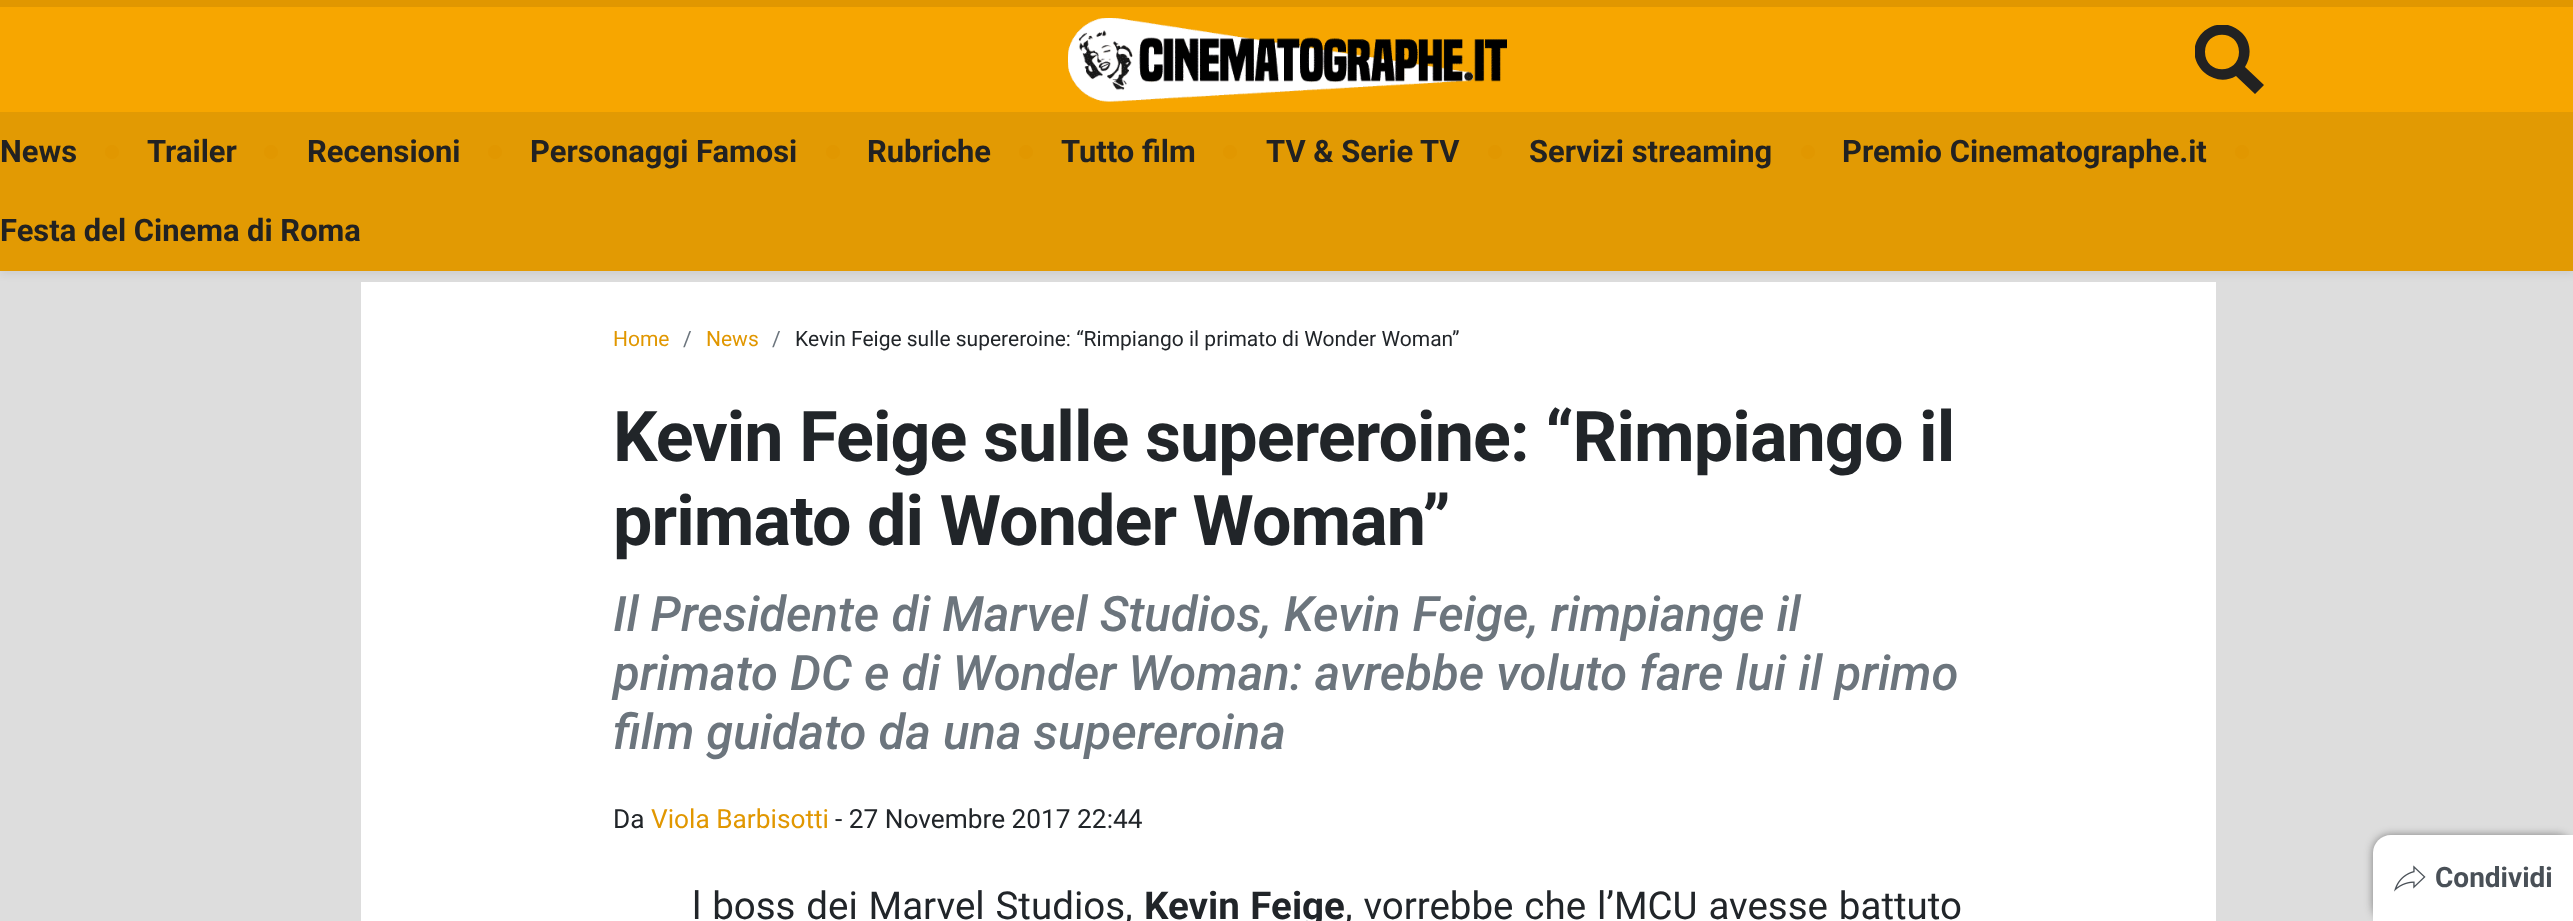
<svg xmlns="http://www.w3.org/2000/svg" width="2573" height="921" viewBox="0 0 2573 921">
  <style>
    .t1 { font: bold 30.9px Roboto; fill: #222; }
    .t2 { font: 21px Roboto; fill: #e19700; }
    .t3 { font: 21px Roboto; fill: #6c757d; }
    .t4 { font: 21px Roboto; fill: #212529; }
    .t5 { font: bold 70px Roboto; letter-spacing: -0.9px; fill: #212529; }
    .t6 { font: italic 500 49px Roboto; fill: #6c757d; }
    .t7 { font: 26.25px Roboto; fill: #212529; }
    .t8 { font: 26.25px Roboto; fill: #e19700; }
    .t9 { font: 38.5px Roboto; fill: #212529; }
    .t10 { font: bold 38.5px Roboto; fill: #212529; }
    .t11 { font: bold 28px Roboto; fill: #495057; }
  </style>
  <defs>
    <clipPath id="clip1"><rect x="2195" y="25" width="70" height="70"/></clipPath>
  </defs>
  <rect width="100%" height="100%" fill="#ddd"/>
  <rect x="361" y="282" width="1855" height="639" fill="#fff"/>
  <rect x="0" y="4" width="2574" height="271" fill="#22222212" filter="blur(3.5px)"/>
  <rect x="0" y="7" width="2573" height="105" fill="#f7a600"/>
  <rect x="0" y="0" width="2573" height="7" fill="#e19700"/>
  <image x="1068" y="18" width="439" height="84" href="images/1.png"/>
  <g clip-path="url(#clip1)">
    <path d="M2264 85L2245 67C2252 56 2251 42 2242 33C2235 26 2226 23 2217 25C2210 26 2203 31 2199 37C2183 61 2212 90 2236 76L2255 94ZM2205 52C2205 29 2239 29 2239 52C2239 75 2205 75 2205 52Z" fill="#222"/>
  </g>
  <rect x="0" y="112" width="2573" height="159" fill="#e29a03"/>
  <text x="0" y="162" class="t1">News</text>
  <circle cx="112" cy="152" r="7" fill="#e19700"/>
  <text x="147" y="162" class="t1">Trailer</text>
  <circle cx="271" cy="152" r="7" fill="#e19700"/>
  <text x="307" y="162" class="t1">Recensioni</text>
  <circle cx="495" cy="152" r="7" fill="#e19700"/>
  <text x="530" y="162" class="t1">Personaggi Famosi</text>
  <circle cx="833" cy="152" r="7" fill="#e19700"/>
  <text x="867" y="162" class="t1">Rubriche</text>
  <circle cx="1026" cy="152" r="7" fill="#e19700"/>
  <text x="1061" y="162" class="t1">Tutto film</text>
  <circle cx="1230" cy="152" r="7" fill="#e19700"/>
  <text x="1266" y="162" class="t1">TV &amp; Serie TV</text>
  <circle cx="1495" cy="152" r="7" fill="#e19700"/>
  <text x="1529" y="162" class="t1">Servizi streaming</text>
  <circle cx="1808" cy="152" r="7" fill="#e19700"/>
  <text x="1842" y="162" class="t1">Premio Cinematographe.it</text>
  <circle cx="2242" cy="152" r="7" fill="#e19700"/>
  <text x="0" y="241" class="t1">Festa del Cinema di Roma</text>
  <text x="613" y="346" class="t2">Home</text>
  <text x="683" y="346" class="t3">/</text>
  <text x="706" y="346" class="t2">News</text>
  <text x="772" y="346" class="t3">/</text>
  <text x="795" y="346" class="t4">Kevin Feige sulle supereroine: “Rimpiango il primato di Wonder Woman”</text>
  <text x="613" y="461" class="t5">Kevin Feige sulle supereroine: “Rimpiango il</text>
  <text x="613" y="545" class="t5">primato di Wonder Woman”</text>
  <text x="613" y="631" class="t6">Il Presidente di Marvel Studios, Kevin Feige, rimpiange il</text>
  <text x="613" y="690" class="t6">primato DC e di Wonder Woman: avrebbe voluto fare lui il primo</text>
  <text x="613" y="749" class="t6">film guidato da una supereroina</text>
  <text x="613" y="828" class="t7">Da</text>
  <text x="651" y="828" class="t8">Viola Barbisotti</text>
  <text x="835" y="828" class="t7">- 27 Novembre 2017 22:44</text>
  <text x="692" y="919" word-spacing="1.25" class="t9">l boss dei Marvel Studios,</text>
  <text x="1144" y="919" word-spacing="1" class="t10">Kevin Feige</text>
  <text x="1345" y="919" word-spacing="1.25" class="t9">, vorrebbe che l’MCU avesse battuto</text>
  <rect x="2373" y="835" width="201" height="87" rx="18" fill="#22222280" filter="blur(4.5px)"/>
  <path d="M2391 835H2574V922H2373V853C2373 843 2381 835 2391 835Z" fill="#fff"/>
  <image x="2394" y="865" width="32" height="27" href="images/2.png"/>
  <text x="2435" y="887" class="t11">Condividi</text>
</svg>
